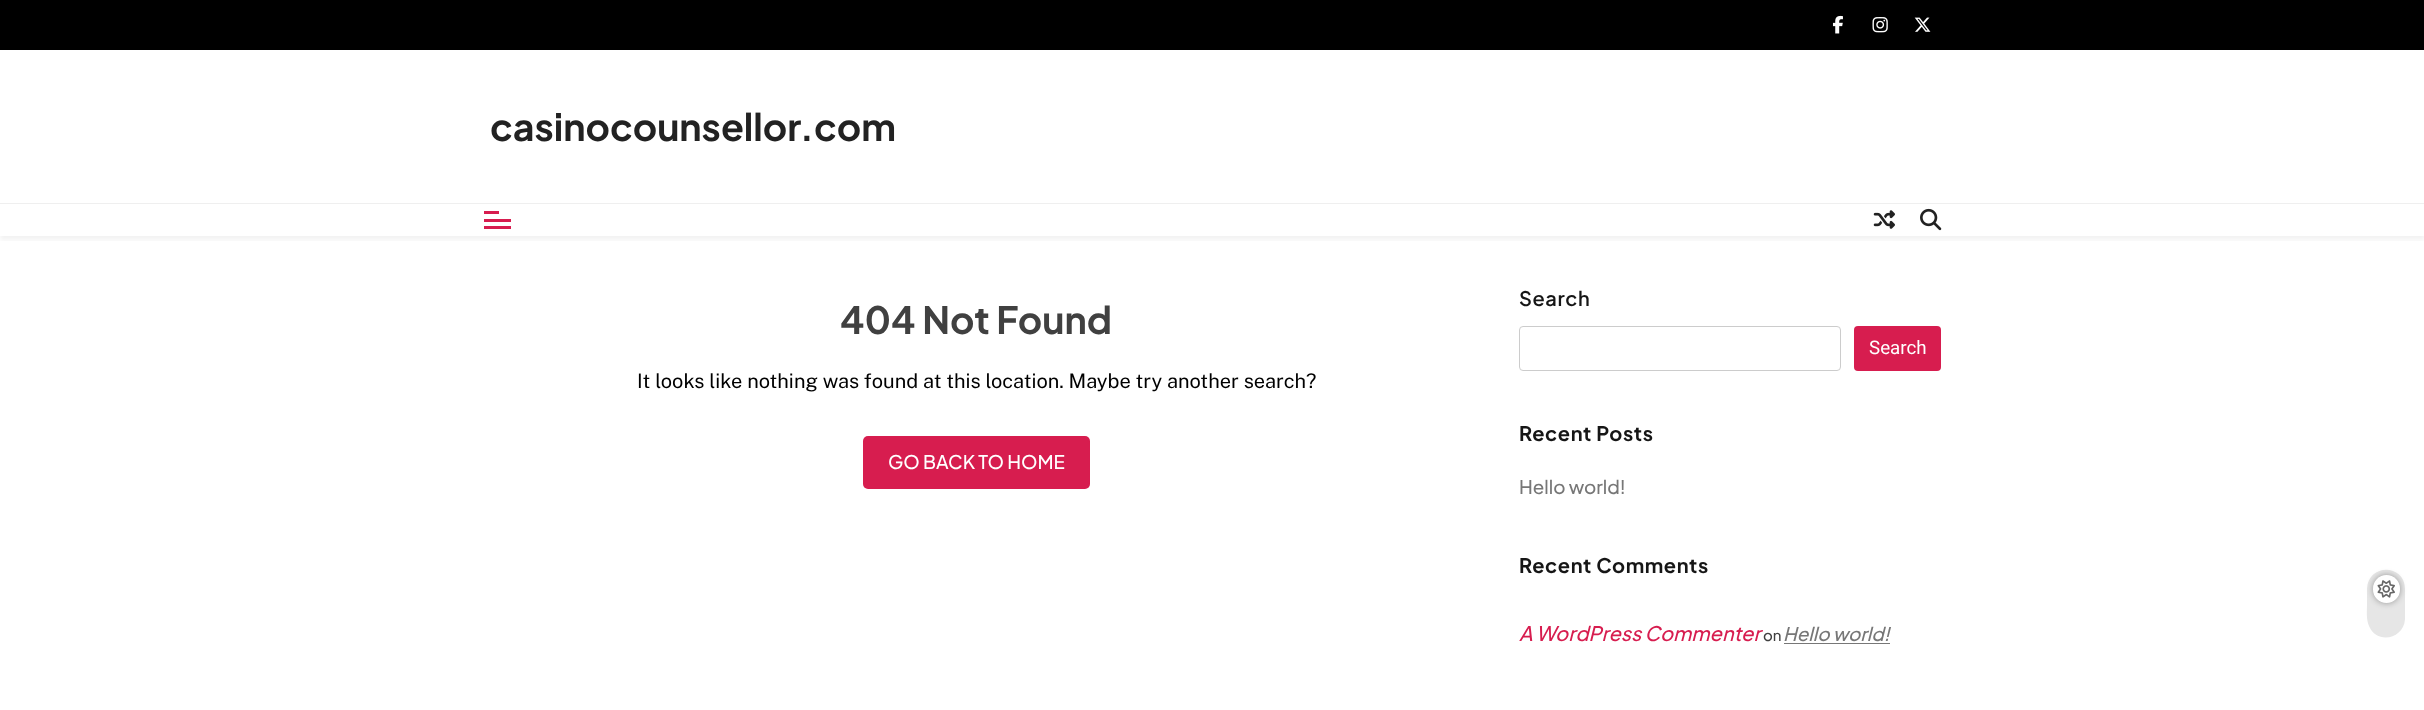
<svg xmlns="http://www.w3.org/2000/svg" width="2424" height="710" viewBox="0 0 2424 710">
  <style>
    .t1 { font: bold 37.5px Plus Jakarta Sans; fill: #222; }
    .t2 { font: bold 37.5px Plus Jakarta Sans; fill: #404040; }
    .t3 { font: 100 20px Public Sans; fill: #000; }
    .t4 { font: 500 18.75px Plus Jakarta Sans; fill: #fff; }
    .t5 { font: 600 20px Plus Jakarta Sans; letter-spacing: 0.6px; fill: #161616; }
    .t6 { font: 18.75px Roboto; fill: #fff; }
    .t7 { font: bold 20px Plus Jakarta Sans; letter-spacing: 0.6px; fill: #161616; }
    .t8 { font: 500 18.75px Plus Jakarta Sans; fill: #777; }
    .t9 { font: italic 500 20px Plus Jakarta Sans; fill: #d71d4f; }
    .t10 { font: 500 15px Plus Jakarta Sans; fill: #404040; }
    .t11 { font: italic 500 18.75px Plus Jakarta Sans; fill: #777; }
  </style>
  <defs>
    <clipPath id="clip1"><rect x="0" y="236" width="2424" height="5"/></clipPath>
  </defs>
  <rect width="100%" height="100%" fill="#fff"/>
  <rect x="0" y="0" width="2424" height="50" fill="#000"/>
  <image x="1832" y="15" width="11" height="19" href="images/1.png"/>
  <image x="1872" y="17" width="16" height="16" href="images/2.png"/>
  <image x="1914" y="17" width="17" height="15" href="images/3.png"/>
  <g clip-path="url(#clip1)">
    <rect x="0" y="54" width="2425" height="186" fill="#0000000d" filter="blur(2.5px)"/>
  </g>
  <text x="490" y="141" class="t1">casinocounsellor.com</text>
  <rect x="0" y="203" width="2424" height="1" fill="#efefef"/>
  <rect x="484" y="211" width="15" height="3" fill="#d71d4f"/>
  <rect x="484" y="219" width="27" height="3" fill="#d71d4f"/>
  <rect x="484" y="226" width="27" height="3" fill="#d71d4f"/>
  <image x="1873" y="210" width="22" height="19" href="images/4.png"/>
  <image x="1920" y="208" width="22" height="23" href="images/5.png"/>
  <text x="840" y="334" class="t2">404 Not Found</text>
  <text x="637" y="388" class="t3">It looks like nothing was found at this location. Maybe try another search?</text>
  <rect x="863" y="436" width="227" height="53" rx="5" fill="#d71d4f"/>
  <text x="888" y="469" class="t4">GO BACK TO HOME</text>
  <text x="1519" y="306" class="t5">Search</text>
  <rect x="1519.5" y="326.5" width="321" height="44" rx="3.5" fill="none" stroke="#ccc"/>
  <rect x="1854" y="326" width="87" height="45" rx="4" fill="#d71d4f"/>
  <text x="1869" y="354" class="t6">Search</text>
  <text x="1519" y="441" class="t7">Recent Posts</text>
  <text x="1519" y="494" class="t8">Hello world!</text>
  <text x="1519" y="573" class="t7">Recent Comments</text>
  <text x="1519" y="641" class="t9">A WordPress Commenter</text>
  <text x="1763" y="641" class="t10">on</text>
  <text x="1783" y="641" class="t11">Hello world!</text>
  <rect x="1784" y="643" width="106" height="1" fill="#777"/>
  <path d="M2405 589V619C2404 639 2377 645 2369 626C2366 619 2367 611 2367 604V589C2368 563 2405 564 2405 589Z" fill="#e6e6e6"/>
  <rect x="2373" y="575" width="27" height="28" rx="13.5" fill="#00000059" filter="blur(3px)"/>
  <rect x="2373" y="575" width="27" height="28" rx="13.5" fill="#fff"/>
  <image x="2377" y="580" width="18" height="18" href="images/6.png"/>
</svg>
